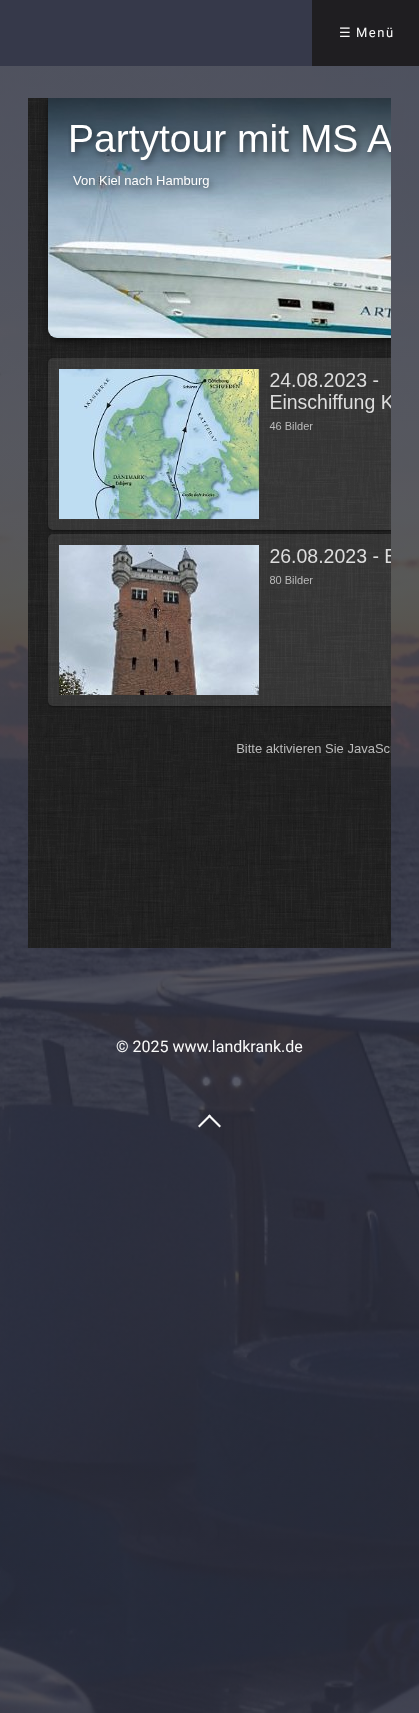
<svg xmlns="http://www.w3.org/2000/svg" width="419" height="1713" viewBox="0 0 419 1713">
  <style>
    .t1 { font: 13px DejaVu Sans; letter-spacing: 1.5px; fill: #fafafa; }
    .t2 { font: 13px Roboto; letter-spacing: 1.5px; fill: #fafafa; }
    .t3 { font: 16px Roboto; fill: #fafafa; }
  </style>
  <rect width="100%" height="100%" fill="#fff"/>
  <image x="0" y="0" width="419" height="1713" href="images/1.png"/>
  <rect x="0" y="0" width="312" height="66" fill="#353849f2"/>
  <rect x="312" y="0" width="107" height="66" fill="#1f1e21"/>
  <text x="339" y="37" class="t1">☰</text>
  <text x="356" y="37" class="t2">Menü</text>
  <image x="28" y="98" width="363" height="850" href="images/2.png"/>
  <text x="116" y="1052" class="t3">© 2025 www.landkrank.de</text>
  <path d="M198 1126L209.5 1114.5L211 1116L199.5 1127.5Z" fill="#fafafa"/>
  <path d="M208 1116L209.5 1114.5L221 1126L219.5 1127.5Z" fill="#fafafa"/>
</svg>
